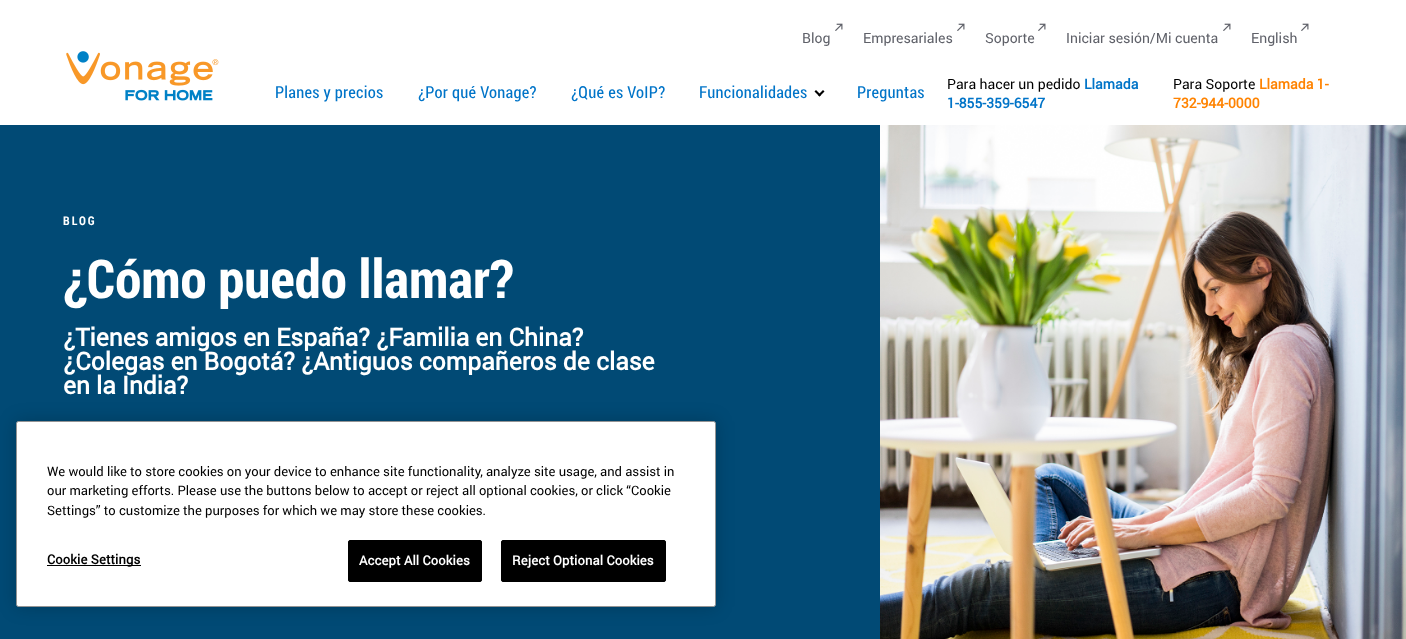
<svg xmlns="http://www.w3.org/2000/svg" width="1406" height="639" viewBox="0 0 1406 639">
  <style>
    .t1 { font: 14px Roboto; fill: #5f6169; }
    .t2 { font: 16.5px Roboto Condensed; letter-spacing: 0.25px; fill: #0074c8; }
    .t3 { font: 14px Roboto; fill: #000; }
    .t4 { font: bold 14px Roboto; fill: #0074c8; }
    .t5 { font: bold 14px Roboto; fill: #ff8300; }
    .t6 { font: bold 12px Roboto Condensed; letter-spacing: 2px; fill: #fff; }
    .t7 { font: bold 53.5px Roboto Condensed; fill: #fff; }
    .t8 { font: bold 24.6px Roboto; fill: #fff; }
    .t9 { font: 13px Roboto; fill: #000; }
    .t10 { font: bold 13px Roboto; letter-spacing: 0.1px; fill: #000; }
    .t11 { font: bold 13px Roboto; letter-spacing: 0.1px; fill: #fff; }
  </style>
  <rect width="100%" height="100%" fill="#fff"/>
  <image x="66" y="51" width="153" height="50" href="images/1.png"/>
  <image x="835" y="23" width="8" height="8" href="images/2.png"/>
  <text x="802" y="43" class="t1">Blog</text>
  <image x="957" y="23" width="8" height="8" href="images/2.png"/>
  <text x="863" y="43" class="t1">Empresariales</text>
  <image x="1038" y="23" width="8" height="8" href="images/2.png"/>
  <text x="985" y="43" class="t1">Soporte</text>
  <image x="1223" y="23" width="8" height="8" href="images/2.png"/>
  <text x="1066" y="43" class="t1">Iniciar sesión/Mi cuenta</text>
  <image x="1301" y="23" width="8" height="8" href="images/2.png"/>
  <text x="1251" y="43" class="t1">English</text>
  <text x="275" y="98" class="t2">Planes y precios</text>
  <text x="418" y="98" class="t2">¿Por qué Vonage?</text>
  <text x="571" y="98" class="t2">¿Qué es VoIP?</text>
  <text x="699" y="98" class="t2">Funcionalidades</text>
  <path d="M824.5 91.5L819.5 96.5L818 95L823 90Z" fill="#000"/>
  <path d="M821 95L819.5 96.5L814.5 91.5L816 90Z" fill="#000"/>
  <text x="857" y="98" class="t2">Preguntas</text>
  <text x="947" y="89" class="t3">Para hacer un pedido</text>
  <text x="1084" y="89" class="t4">Llamada</text>
  <text x="947" y="108" class="t4">1-855-359-6547</text>
  <text x="1173" y="89" class="t3">Para Soporte</text>
  <text x="1259" y="89" class="t5">Llamada 1-</text>
  <text x="1173" y="108" class="t5">732-944-0000</text>
  <rect x="0" y="125" width="880" height="514" fill="#014a75"/>
  <image x="880" y="125" width="526" height="514" href="images/3.png"/>
  <text x="63" y="225" class="t6">BLOG</text>
  <text x="63" y="298" class="t7">¿Cómo puedo llamar?</text>
  <text x="63" y="346" class="t8">¿Tienes amigos en España? ¿Familia en China?</text>
  <text x="63" y="370" class="t8">¿Colegas en Bogotá? ¿Antiguos compañeros de clase</text>
  <text x="63" y="394" class="t8">en la India?</text>
  <rect x="16" y="421" width="700" height="186" rx="2.5" fill="#00000033" filter="blur(9px)"/>
  <rect x="16.5" y="421.5" width="699" height="185" rx="2" fill="#fff" stroke="#949494"/>
  <text x="47" y="476" class="t9">We would like to store cookies on your device to enhance site functionality, analyze site usage, and assist in</text>
  <text x="47" y="495" class="t9">our marketing efforts. Please use the buttons below to accept or reject all optional cookies, or click “Cookie</text>
  <text x="47" y="515" class="t9">Settings” to customize the purposes for which we may store these cookies.</text>
  <rect x="47" y="565" width="94" height="1" fill="#000"/>
  <text x="47" y="564" class="t10">Cookie Settings</text>
  <rect x="348.5" y="540.5" width="133" height="41" rx="1.5" fill="#000" stroke="#000"/>
  <text x="359" y="565" class="t11">Accept All Cookies</text>
  <rect x="501.5" y="540.5" width="164" height="41" rx="1.5" fill="#000" stroke="#000"/>
  <text x="512" y="565" class="t11">Reject Optional Cookies</text>
</svg>
